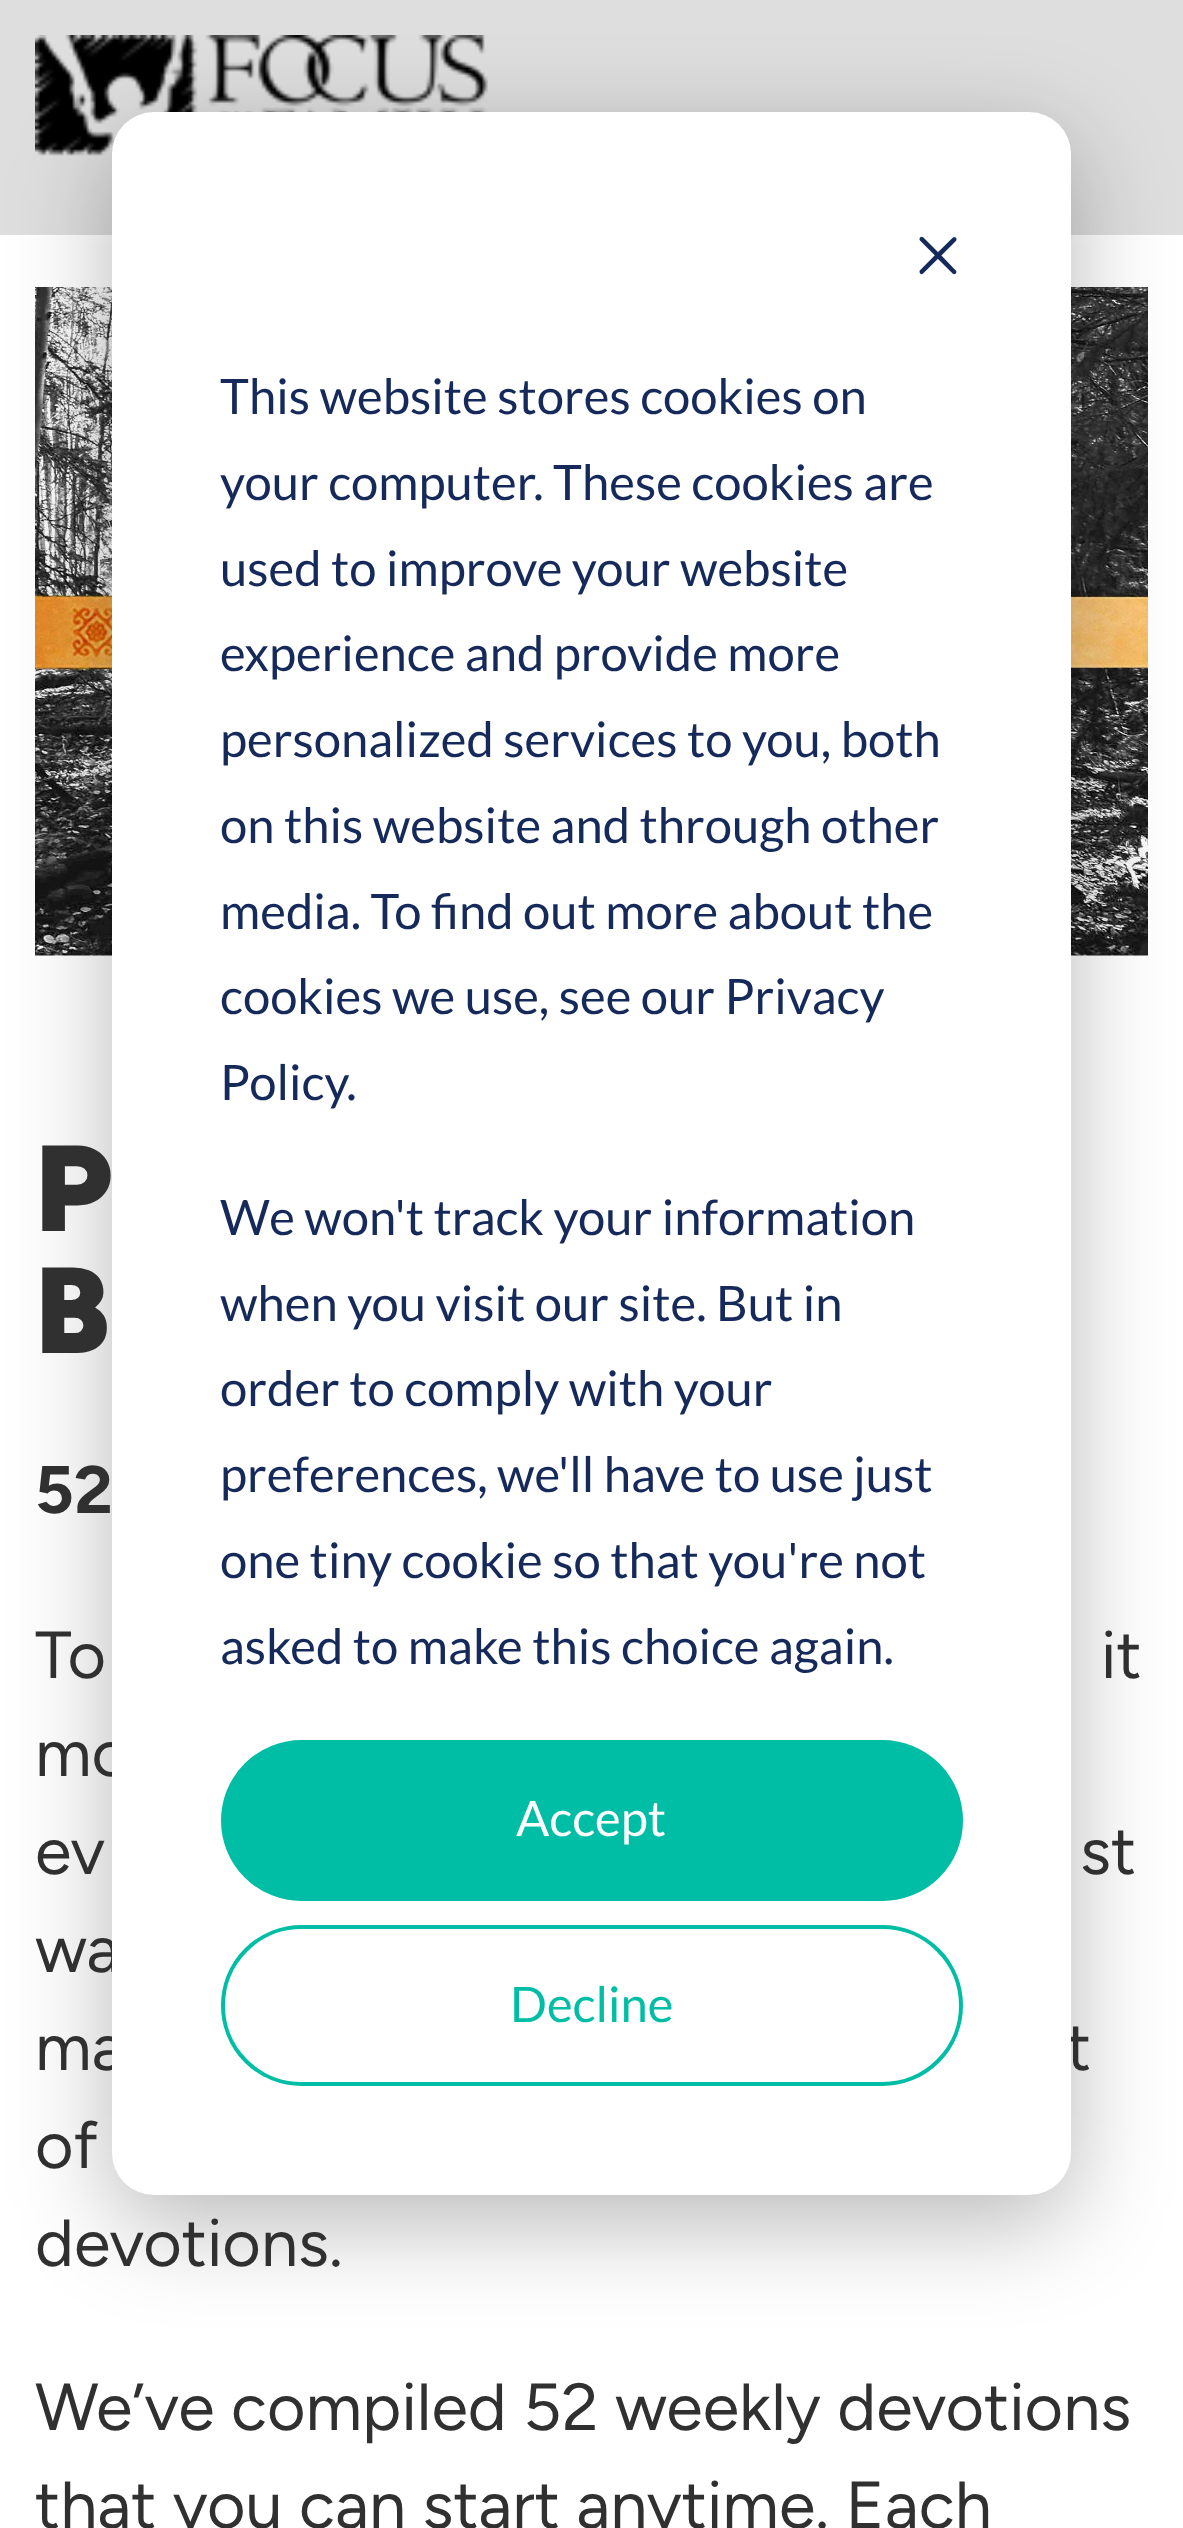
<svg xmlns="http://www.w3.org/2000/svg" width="1183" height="2528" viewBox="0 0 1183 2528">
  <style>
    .t1 { font: 66.5px Figtree; fill: #303030; }
    .t2 { font: 49px Lato; fill: #15295a; }
    .t3 { font: 49px Lato; fill: #fff; }
    .t4 { font: 49px Lato; fill: #00bda5; }
    .t5 { font: 900 122px Figtree; fill: #303030; }
    .t6 { font: bold 67px Figtree; fill: #303030; }
  </style>
  <rect width="100%" height="100%" fill="#fff"/>
  <rect x="0" y="0" width="1183" height="235" fill="#dedede"/>
  <image x="35" y="35" width="453" height="121" href="images/1.png"/>
  <image x="35" y="287" width="1113" height="669" href="images/3.png"/>
  <rect x="112" y="140" width="959" height="2083" rx="42" fill="#00000047" filter="blur(49px)"/>
  <text x="35" y="1776" class="t1">mo</text>
  <text x="35" y="1972" class="t1">wa</text>
  <text x="35" y="2070" class="t1">ma</text>
  <text x="1066" y="2070" class="t1">t</text>
  <rect x="112" y="112" width="959" height="2083" rx="42" fill="#fff"/>
  <image x="919" y="236" width="38" height="39" href="images/2.png"/>
  <text x="220" y="414" class="t2">This website stores cookies on</text>
  <text x="220" y="500" class="t2">your computer. These cookies are</text>
  <text x="220" y="586" class="t2">used to improve your website</text>
  <text x="220" y="671" class="t2">experience and provide more</text>
  <text x="220" y="757" class="t2">personalized services to you, both</text>
  <text x="220" y="843" class="t2">on this website and through other</text>
  <text x="220" y="929" class="t2">media. To find out more about the</text>
  <text x="220" y="1014" class="t2">cookies we use, see our Privacy</text>
  <text x="220" y="1100" class="t2">Policy.</text>
  <text x="220" y="1235" class="t2">We won't track your information</text>
  <text x="220" y="1321" class="t2">when you visit our site. But in</text>
  <text x="220" y="1406" class="t2">order to comply with your</text>
  <text x="220" y="1492" class="t2">preferences, we'll have to use just</text>
  <text x="220" y="1578" class="t2">one tiny cookie so that you're not</text>
  <text x="220" y="1664" class="t2">asked to make this choice again.</text>
  <rect x="223" y="1742" width="738" height="157" rx="78.5" fill="#00bda5" stroke="#00bda5" stroke-width="4"/>
  <text x="516" y="1836" class="t3">Accept</text>
  <rect x="223" y="1927" width="738" height="157" rx="78.5" fill="none" stroke="#00bda5" stroke-width="4"/>
  <text x="510" y="2022" class="t4">Decline</text>
  <text x="35" y="1231" class="t5">P</text>
  <text x="35" y="1353" class="t5">B</text>
  <text x="35" y="1513" class="t6">52</text>
  <text x="35" y="1678" class="t1">To</text>
  <text x="1101" y="1678" class="t1">it</text>
  <text x="35" y="1874" class="t1">ev</text>
  <text x="1080" y="1874" class="t1">st</text>
  <text x="35" y="2168" class="t1">of</text>
  <text x="35" y="2266" class="t1">devotions.</text>
  <text x="35" y="2430" class="t1">We’ve compiled 52 weekly devotions</text>
  <text x="35" y="2528" class="t1">that you can start anytime. Each</text>
</svg>
